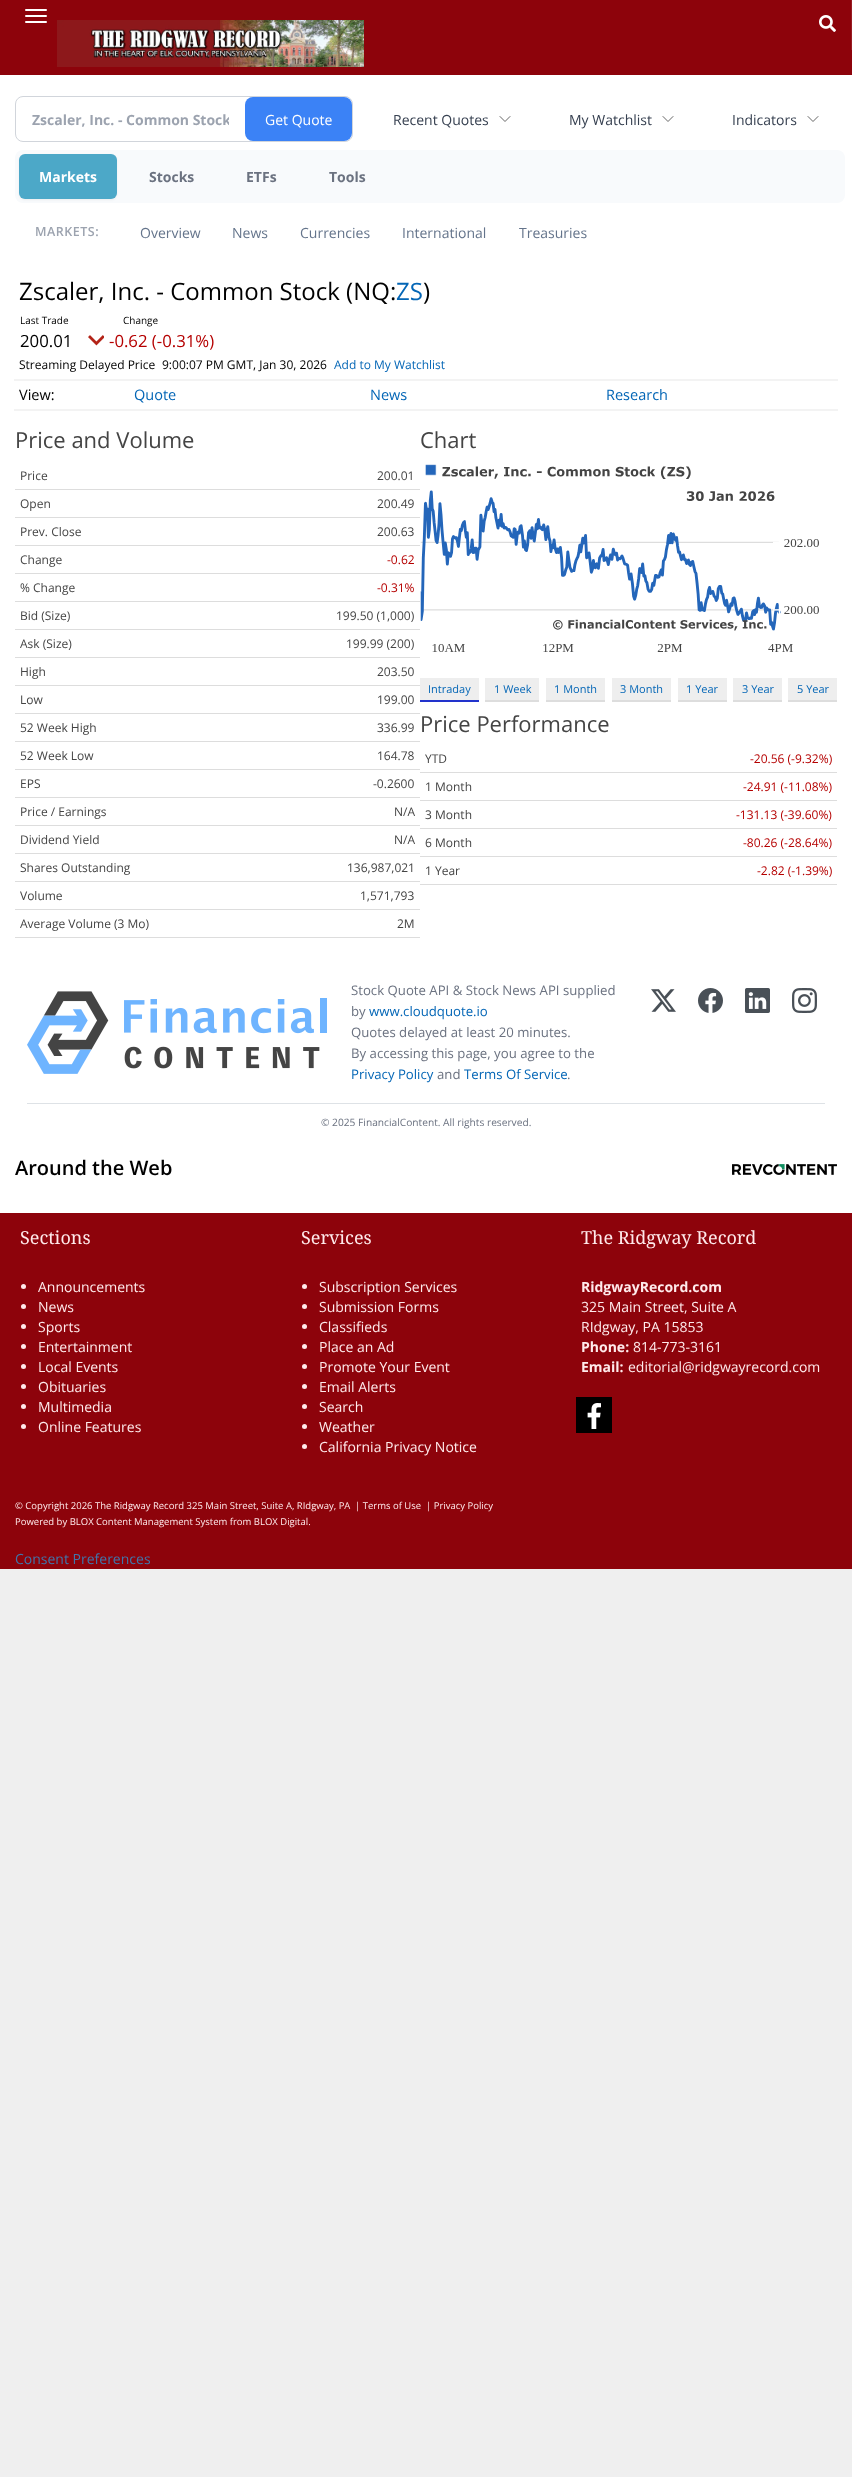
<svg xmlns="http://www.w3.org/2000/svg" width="852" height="2477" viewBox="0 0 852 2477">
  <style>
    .t1 { font: bold 14px Open Sans; fill: #9ca3af; }
    .t2 { font: 14px Open Sans; fill: #fff; }
    .t3 { font: 14px Open Sans; fill: #374151; }
    .t4 { font: bold 14px Open Sans; fill: #fff; }
    .t5 { font: bold 14px Open Sans; fill: #6b7280; }
    .t6 { font: 600 12.5px Open Sans; letter-spacing: 0.5px; fill: #9ca3af; }
    .t7 { font: 14px Open Sans; fill: #64748b; }
    .t8 { font: 24px Open Sans; fill: #000; }
    .t9 { font: 24px Open Sans; fill: #0466b6; }
    .t10 { font: 10px Open Sans; fill: #000; }
    .t11 { font: 16.75px Open Sans; fill: #000; }
    .t12 { font: 16.75px Open Sans; fill: #b50000; }
    .t13 { font: 12px Open Sans; fill: #000; }
    .t14 { font: 12px Open Sans; fill: #0466b6; }
    .t15 { font: 14.5px Open Sans; fill: #000; }
    .t16 { font: 14.5px Open Sans; fill: #0466b6; }
    .t17 { font: 22px Open Sans; fill: #444; }
    .t18 { font: 12px Open Sans; fill: #444; }
    .t19 { font: 12px Open Sans; fill: #b50000; }
    .t20 { font: 11px Open Sans; fill: #0466b6; }
    .t21 { font: 13.2px Open Sans; fill: #6b7280; }
    .t22 { font: 13.2px Open Sans; fill: #0466b6; }
    .t23 { font: 10.2px Open Sans; fill: #6b7280; }
    .t24 { font: 600 20px Open Sans; fill: #000; }
    .t25 { font: 18px Droid Serif; fill: #ffeaeb; }
    .t26 { font: 14px Open Sans; fill: #ffeaeb; }
    .t27 { font: bold 14px Open Sans; fill: #ffeaeb; }
    .t28 { font: 9.5px Open Sans; fill: #ffeaeb; }
    .t29 { font: 14px Open Sans; fill: #4175aa; }
  </style>
  <defs>
    <clipPath id="clip1"><rect x="32" y="110" width="197" height="19"/></clipPath>
  </defs>
  <rect width="100%" height="100%" fill="#efefef"/>
  <rect x="0" y="0" width="852" height="75" fill="#8d030b"/>
  <rect x="25" y="9" width="22" height="2" rx="1" fill="#fff"/>
  <rect x="25" y="15" width="22" height="2" rx="1" fill="#fff"/>
  <rect x="25" y="21" width="22" height="2" rx="1" fill="#fff"/>
  <rect x="851" y="0" width="1" height="50" fill="#981c23"/>
  <image x="819" y="15" width="17" height="17" href="images/1.png"/>
  <image x="57" y="20" width="307" height="47" href="images/2.png"/>
  <rect x="0" y="75" width="852" height="1138" fill="#fff"/>
  <rect x="15.5" y="96.5" width="337" height="45" rx="7.5" fill="none" stroke="#d1d5db"/>
  <g clip-path="url(#clip1)">
    <text x="32" y="125" class="t1">Zscaler, Inc. - Common Stock</text>
  </g>
  <rect x="245" y="97" width="107" height="44" rx="8" fill="#3b82f6"/>
  <text x="265" y="125" class="t2">Get Quote</text>
  <text x="393" y="125" class="t3">Recent Quotes</text>
  <path d="M510 116.5L505 121.5L500 116.5" fill="none" stroke="#666" stroke-linecap="round" stroke-linejoin="round"/>
  <text x="569" y="125" class="t3">My Watchlist</text>
  <path d="M673 116.5L668 121.5L663 116.5" fill="none" stroke="#666" stroke-linecap="round" stroke-linejoin="round"/>
  <text x="732" y="125" class="t3">Indicators</text>
  <path d="M818 116.5L813 121.5L808 116.5" fill="none" stroke="#666" stroke-linecap="round" stroke-linejoin="round"/>
  <rect x="15" y="150" width="830" height="53" rx="8" fill="#f8fafc"/>
  <rect x="19" y="155" width="98" height="45" rx="6" fill="#0000000d" filter="blur(1px)"/>
  <rect x="19" y="154" width="98" height="45" rx="6" fill="#4ca8c8"/>
  <text x="39" y="182" class="t4">Markets</text>
  <text x="149" y="182" class="t5">Stocks</text>
  <text x="246" y="182" class="t5">ETFs</text>
  <text x="329" y="182" class="t5">Tools</text>
  <text x="35" y="236" class="t6">MARKETS:</text>
  <text x="140" y="238" class="t7">Overview</text>
  <text x="232" y="238" class="t7">News</text>
  <text x="300" y="238" class="t7">Currencies</text>
  <text x="402" y="238" class="t7">International</text>
  <text x="519" y="238" class="t7">Treasuries</text>
  <text x="19" y="300" class="t8">Zscaler, Inc. - Common Stock (NQ:</text>
  <text x="396" y="300" class="t9">ZS</text>
  <text x="423" y="300" class="t8">)</text>
  <text x="20" y="324" class="t10">Last Trade</text>
  <text x="20" y="347" class="t11">200.01</text>
  <text x="123" y="324" class="t10">Change</text>
  <image x="88" y="335" width="16" height="11" href="images/3.png"/>
  <text x="109" y="347" class="t12">-0.62 (-0.31%)</text>
  <text x="19" y="369" class="t13">Streaming Delayed Price</text>
  <text x="162" y="369" class="t13">9:00:07 PM GMT, Jan 30, 2026</text>
  <text x="334" y="369" class="t14">Add to My Watchlist</text>
  <rect x="14" y="379" width="824" height="2" fill="#f3f3f3"/>
  <rect x="14" y="409" width="824" height="2" fill="#f3f3f3"/>
  <text x="19" y="400" class="t15">View:</text>
  <text x="134" y="400" class="t16">Quote</text>
  <text x="370" y="400" class="t16">News</text>
  <text x="606" y="400" class="t16">Research</text>
  <text x="15" y="448" class="t17">Price and Volume</text>
  <rect x="15" y="489" width="405" height="1" fill="#ddd"/>
  <text x="20" y="480" class="t18">Price</text>
  <text x="377" y="480" class="t18">200.01</text>
  <rect x="15" y="517" width="405" height="1" fill="#ddd"/>
  <text x="20" y="508" class="t18">Open</text>
  <text x="377" y="508" class="t18">200.49</text>
  <rect x="15" y="545" width="405" height="1" fill="#ddd"/>
  <text x="20" y="536" class="t18">Prev. Close</text>
  <text x="377" y="536" class="t18">200.63</text>
  <rect x="15" y="573" width="405" height="1" fill="#ddd"/>
  <text x="20" y="564" class="t18">Change</text>
  <text x="387" y="564" class="t19">-0.62</text>
  <rect x="15" y="601" width="405" height="1" fill="#ddd"/>
  <text x="20" y="592" class="t18">% Change</text>
  <text x="377" y="592" class="t19">-0.31%</text>
  <rect x="15" y="629" width="405" height="1" fill="#ddd"/>
  <text x="20" y="620" class="t18">Bid (Size)</text>
  <text x="336" y="620" class="t18">199.50 (1,000)</text>
  <rect x="15" y="657" width="405" height="1" fill="#ddd"/>
  <text x="20" y="648" class="t18">Ask (Size)</text>
  <text x="346" y="648" class="t18">199.99 (200)</text>
  <rect x="15" y="685" width="405" height="1" fill="#ddd"/>
  <text x="20" y="676" class="t18">High</text>
  <text x="377" y="676" class="t18">203.50</text>
  <rect x="15" y="713" width="405" height="1" fill="#ddd"/>
  <text x="20" y="704" class="t18">Low</text>
  <text x="377" y="704" class="t18">199.00</text>
  <rect x="15" y="741" width="405" height="1" fill="#ddd"/>
  <text x="20" y="732" class="t18">52 Week High</text>
  <text x="377" y="732" class="t18">336.99</text>
  <rect x="15" y="769" width="405" height="1" fill="#ddd"/>
  <text x="20" y="760" class="t18">52 Week Low</text>
  <text x="377" y="760" class="t18">164.78</text>
  <rect x="15" y="797" width="405" height="1" fill="#ddd"/>
  <text x="20" y="788" class="t18">EPS</text>
  <text x="373" y="788" class="t18">-0.2600</text>
  <rect x="15" y="825" width="405" height="1" fill="#ddd"/>
  <text x="20" y="816" class="t18">Price / Earnings</text>
  <text x="394" y="816" class="t18">N/A</text>
  <rect x="15" y="853" width="405" height="1" fill="#ddd"/>
  <text x="20" y="844" class="t18">Dividend Yield</text>
  <text x="394" y="844" class="t18">N/A</text>
  <rect x="15" y="881" width="405" height="1" fill="#ddd"/>
  <text x="20" y="872" class="t18">Shares Outstanding</text>
  <text x="347" y="872" class="t18">136,987,021</text>
  <rect x="15" y="909" width="405" height="1" fill="#ddd"/>
  <text x="20" y="900" class="t18">Volume</text>
  <text x="360" y="900" class="t18">1,571,793</text>
  <rect x="15" y="937" width="405" height="1" fill="#ddd"/>
  <text x="20" y="928" class="t18">Average Volume (3 Mo)</text>
  <text x="397" y="928" class="t18">2M</text>
  <text x="420" y="448" class="t17">Chart</text>
  <image x="420" y="464" width="399" height="188" href="images/4.png"/>
  <rect x="420" y="678" width="59" height="22" fill="#eee"/>
  <rect x="420" y="700" width="59" height="2" fill="#23c"/>
  <text x="428" y="693" class="t20">Intraday</text>
  <rect x="485" y="678" width="54" height="22" fill="#eee"/>
  <rect x="485" y="700" width="54" height="2" fill="#ddd"/>
  <text x="494" y="693" class="t20">1 Week</text>
  <rect x="546" y="678" width="59" height="22" fill="#eee"/>
  <rect x="546" y="700" width="59" height="2" fill="#ddd"/>
  <text x="554" y="693" class="t20">1 Month</text>
  <rect x="612" y="678" width="59" height="22" fill="#eee"/>
  <rect x="612" y="700" width="59" height="2" fill="#ddd"/>
  <text x="620" y="693" class="t20">3 Month</text>
  <rect x="678" y="678" width="49" height="22" fill="#eee"/>
  <rect x="678" y="700" width="49" height="2" fill="#ddd"/>
  <text x="686" y="693" class="t20">1 Year</text>
  <rect x="733" y="678" width="49" height="22" fill="#eee"/>
  <rect x="733" y="700" width="49" height="2" fill="#ddd"/>
  <text x="742" y="693" class="t20">3 Year</text>
  <rect x="788" y="678" width="49" height="22" fill="#eee"/>
  <rect x="788" y="700" width="49" height="2" fill="#ddd"/>
  <text x="797" y="693" class="t20">5 Year</text>
  <text x="420" y="732" class="t17">Price Performance</text>
  <rect x="420" y="772" width="417" height="1" fill="#ddd"/>
  <text x="425" y="763" class="t18">YTD</text>
  <text x="750" y="763" class="t19">-20.56 (-9.32%)</text>
  <rect x="420" y="800" width="417" height="1" fill="#ddd"/>
  <text x="425" y="791" class="t18">1 Month</text>
  <text x="743" y="791" class="t19">-24.91 (-11.08%)</text>
  <rect x="420" y="828" width="417" height="1" fill="#ddd"/>
  <text x="425" y="819" class="t18">3 Month</text>
  <text x="736" y="819" class="t19">-131.13 (-39.60%)</text>
  <rect x="420" y="856" width="417" height="1" fill="#ddd"/>
  <text x="425" y="847" class="t18">6 Month</text>
  <text x="743" y="847" class="t19">-80.26 (-28.64%)</text>
  <rect x="420" y="884" width="417" height="1" fill="#ddd"/>
  <text x="425" y="875" class="t18">1 Year</text>
  <text x="757" y="875" class="t19">-2.82 (-1.39%)</text>
  <image x="27" y="991" width="300" height="83" href="images/5.png"/>
  <text x="351" y="995" class="t21">Stock Quote API &amp; Stock News API supplied</text>
  <text x="351" y="1016" class="t21">by</text>
  <text x="369" y="1016" class="t22">www.cloudquote.io</text>
  <text x="351" y="1037" class="t21">Quotes delayed at least 20 minutes.</text>
  <text x="351" y="1058" class="t21">By accessing this page, you agree to the</text>
  <text x="351" y="1079" class="t22">Privacy Policy</text>
  <text x="437" y="1079" class="t21">and</text>
  <text x="464" y="1079" class="t22">Terms Of Service</text>
  <text x="567" y="1079" class="t21">.</text>
  <image x="651" y="989" width="25" height="23" href="images/6.png"/>
  <image x="698" y="988" width="25" height="25" href="images/7.png"/>
  <image x="745" y="988" width="25" height="25" href="images/8.png"/>
  <image x="792" y="988" width="25" height="25" href="images/9.png"/>
  <rect x="27" y="1103" width="798" height="1" fill="#dee2e6"/>
  <text x="321" y="1126" class="t23">© 2025 FinancialContent. All rights reserved.</text>
  <text x="15" y="1175" class="t24">Around the Web</text>
  <image x="732" y="1164" width="105" height="11" href="images/10.png"/>
  <rect x="0" y="1213" width="852" height="356" fill="#8d030b"/>
  <text x="20" y="1244" class="t25">Sections</text>
  <circle cx="23.5" cy="1286.5" r="2.5" fill="#ffeaeb"/>
  <text x="38" y="1292" class="t26">Announcements</text>
  <circle cx="23.5" cy="1306.5" r="2.5" fill="#ffeaeb"/>
  <text x="38" y="1312" class="t26">News</text>
  <circle cx="23.5" cy="1326.5" r="2.5" fill="#ffeaeb"/>
  <text x="38" y="1332" class="t26">Sports</text>
  <circle cx="23.5" cy="1346.5" r="2.5" fill="#ffeaeb"/>
  <text x="38" y="1352" class="t26">Entertainment</text>
  <circle cx="23.5" cy="1366.5" r="2.5" fill="#ffeaeb"/>
  <text x="38" y="1372" class="t26">Local Events</text>
  <circle cx="23.5" cy="1386.5" r="2.5" fill="#ffeaeb"/>
  <text x="38" y="1392" class="t26">Obituaries</text>
  <circle cx="23.5" cy="1406.5" r="2.5" fill="#ffeaeb"/>
  <text x="38" y="1412" class="t26">Multimedia</text>
  <circle cx="23.5" cy="1426.5" r="2.5" fill="#ffeaeb"/>
  <text x="38" y="1432" class="t26">Online Features</text>
  <text x="301" y="1244" class="t25">Services</text>
  <circle cx="304.5" cy="1286.5" r="2.5" fill="#ffeaeb"/>
  <text x="319" y="1292" class="t26">Subscription Services</text>
  <circle cx="304.5" cy="1306.5" r="2.5" fill="#ffeaeb"/>
  <text x="319" y="1312" class="t26">Submission Forms</text>
  <circle cx="304.5" cy="1326.5" r="2.5" fill="#ffeaeb"/>
  <text x="319" y="1332" class="t26">Classifieds</text>
  <circle cx="304.5" cy="1346.5" r="2.5" fill="#ffeaeb"/>
  <text x="319" y="1352" class="t26">Place an Ad</text>
  <circle cx="304.5" cy="1366.5" r="2.5" fill="#ffeaeb"/>
  <text x="319" y="1372" class="t26">Promote Your Event</text>
  <circle cx="304.5" cy="1386.5" r="2.5" fill="#ffeaeb"/>
  <text x="319" y="1392" class="t26">Email Alerts</text>
  <circle cx="304.5" cy="1406.5" r="2.5" fill="#ffeaeb"/>
  <text x="319" y="1412" class="t26">Search</text>
  <circle cx="304.5" cy="1426.5" r="2.5" fill="#ffeaeb"/>
  <text x="319" y="1432" class="t26">Weather</text>
  <circle cx="304.5" cy="1446.5" r="2.5" fill="#ffeaeb"/>
  <text x="319" y="1452" class="t26">California Privacy Notice</text>
  <text x="581" y="1244" class="t25">The Ridgway Record</text>
  <text x="581" y="1292" class="t27">RidgwayRecord.com</text>
  <text x="581" y="1312" class="t26">325 Main Street, Suite A</text>
  <text x="581" y="1332" class="t26">RIdgway, PA 15853</text>
  <text x="581" y="1352" class="t27">Phone:</text>
  <text x="633" y="1352" class="t26">814-773-3161</text>
  <text x="581" y="1372" class="t27">Email:</text>
  <text x="628" y="1372" class="t26">editorial@ridgwayrecord.com</text>
  <rect x="576" y="1397" width="36" height="36" fill="#000"/>
  <image x="587" y="1403" width="14" height="26" href="images/11.png"/>
  <text x="15" y="1509" class="t28">© Copyright 2026 The Ridgway Record 325 Main Street, Suite A, RIdgway, PA</text>
  <text x="355" y="1509" class="t28">| Terms of Use</text>
  <text x="426" y="1509" class="t28">| Privacy Policy</text>
  <text x="15" y="1525" class="t28">Powered by BLOX Content Management System from BLOX Digital.</text>
  <text x="15" y="1564" class="t29">Consent Preferences</text>
</svg>
